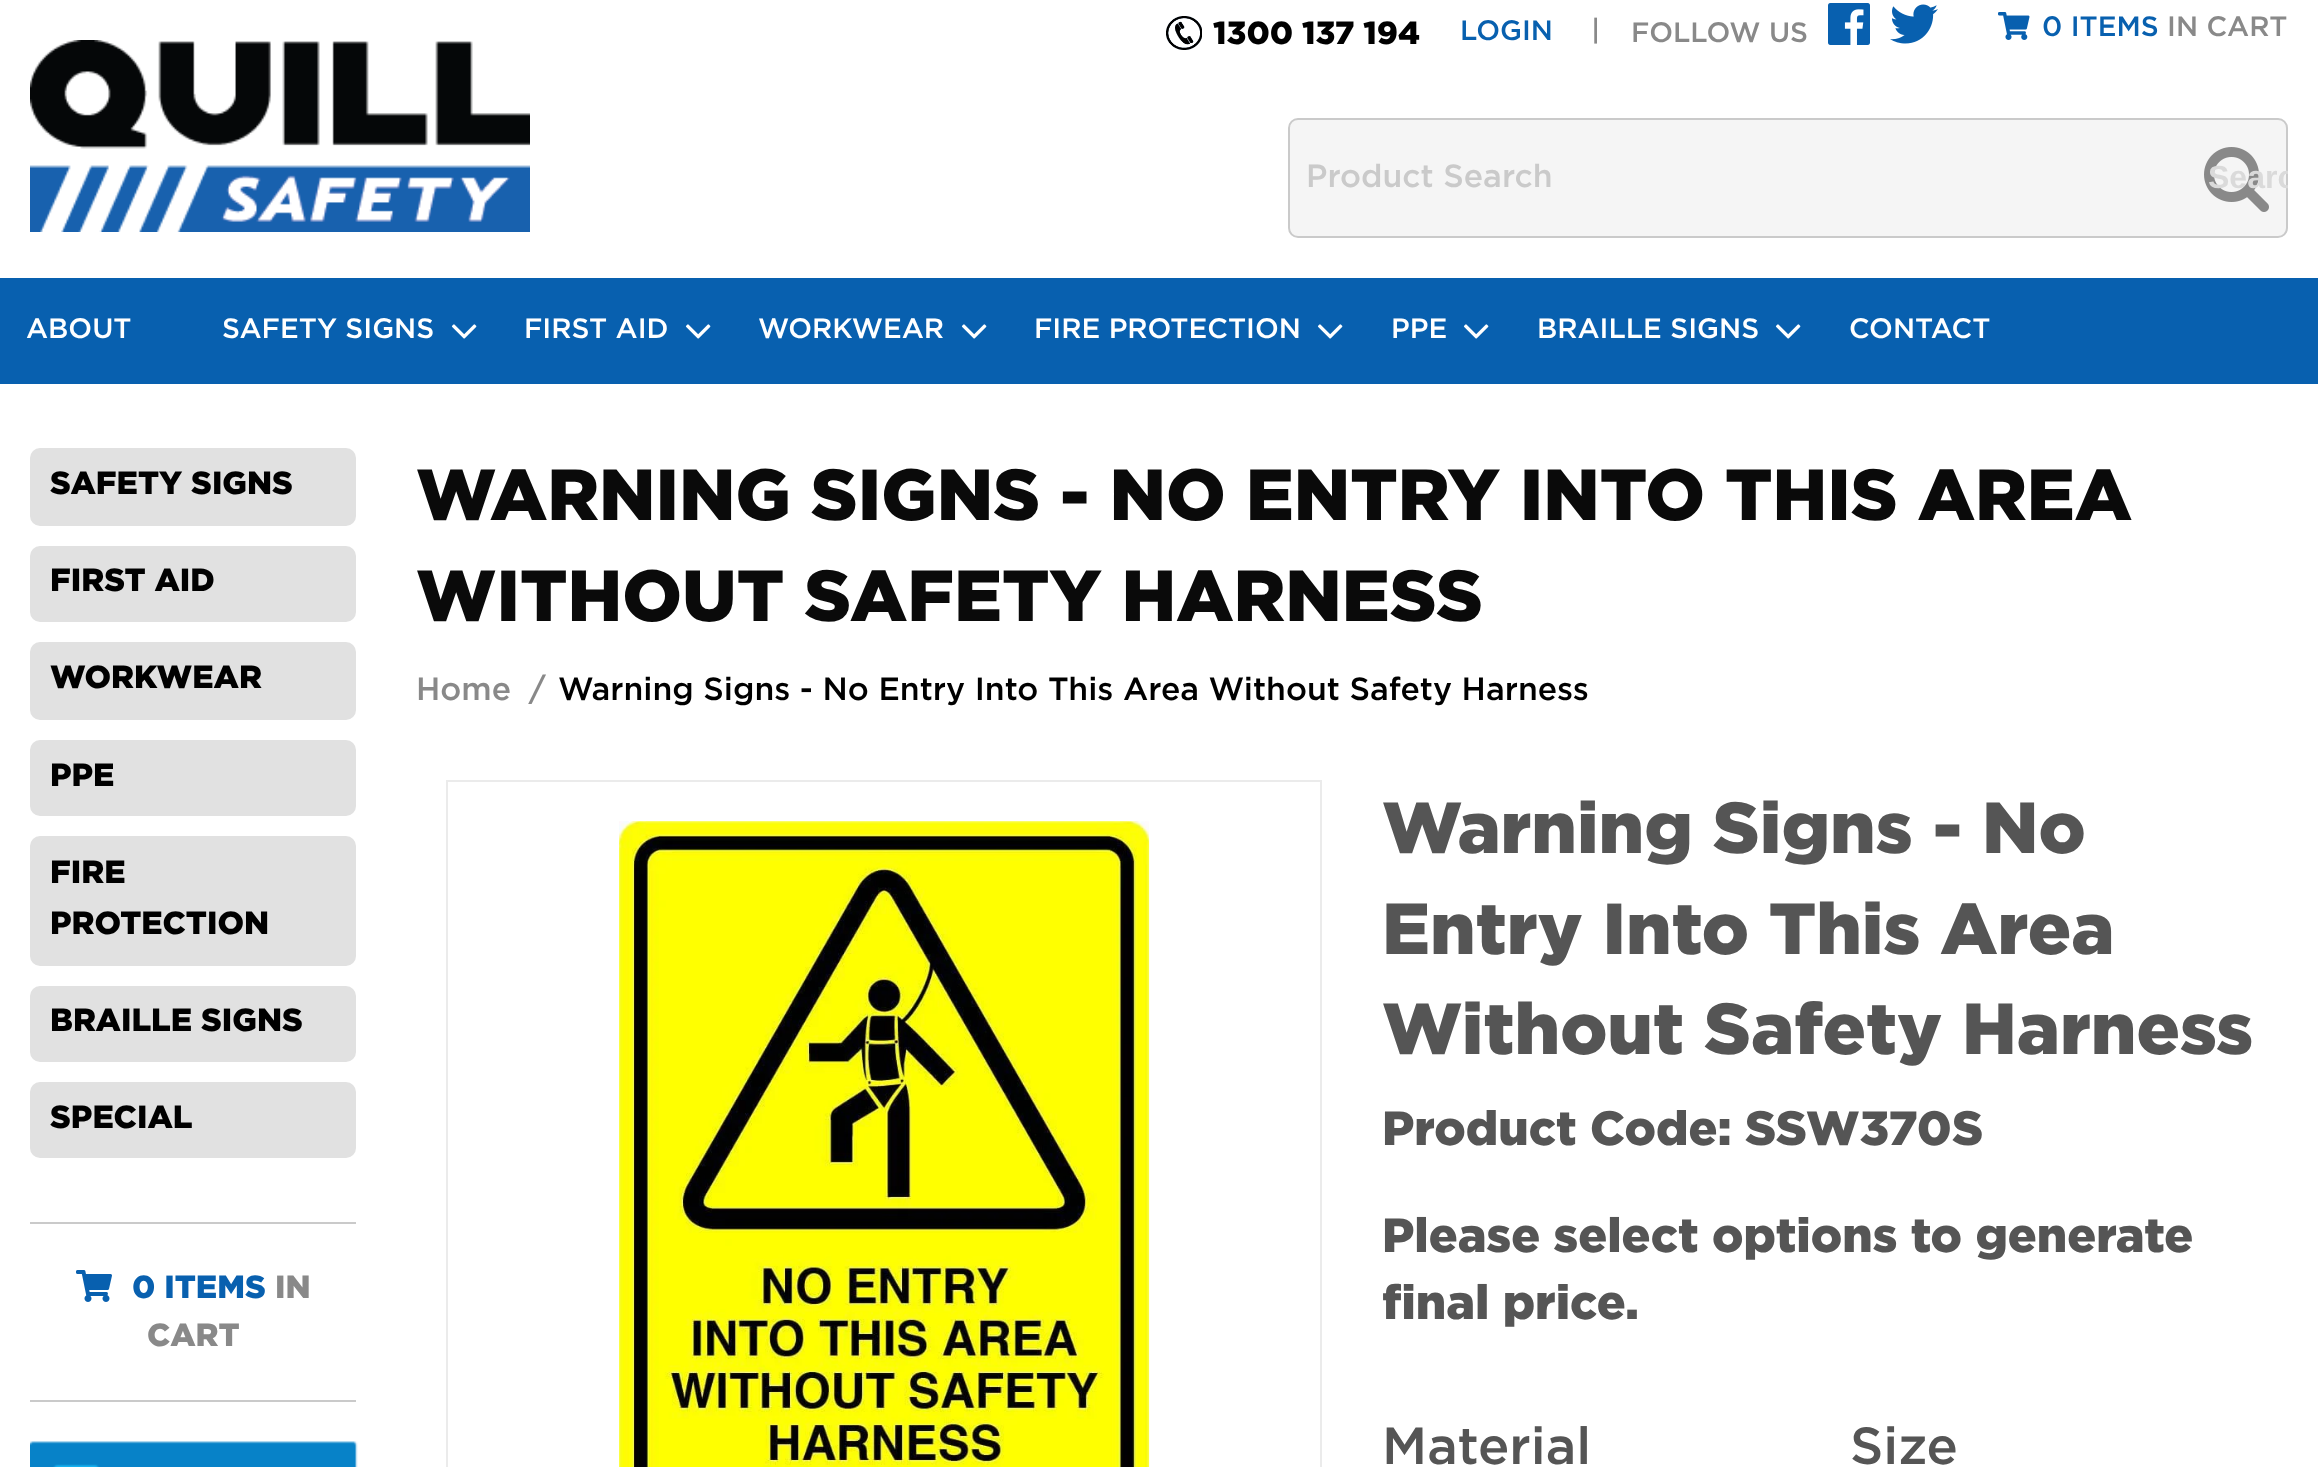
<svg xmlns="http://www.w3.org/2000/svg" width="2318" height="1467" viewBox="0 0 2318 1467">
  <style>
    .t1 { font: 900 32px Gotham; fill: #000; }
    .t2 { font: 500 28px Gotham; fill: #0860af; }
    .t3 { font: 500 28px Gotham; fill: #898989; }
    .t4 { font: 500 32px Gotham; fill: #cacaca; }
    .t5 { font: bold 32px Liberation Sans; fill: #dadada; }
    .t6 { font: 500 28px Gotham; fill: #fff; }
    .t7 { font: 900 32px Gotham; fill: #0860af; }
    .t8 { font: 900 32px Gotham; fill: #898989; }
    .t9 { font: 900 72px Gotham; fill: #0a0a0a; }
    .t10 { font: 500 32px Gotham; fill: #898989; }
    .t11 { font: 500 32px Gotham; fill: #000; }
    .t12 { font: 900 72px Gotham; fill: #555; }
    .t13 { font: 900 48px Gotham; fill: #555; }
    .t14 { font: 500 52px Gotham; fill: #555; }
  </style>
  <defs>
    <clipPath id="clip1"><rect x="2188" y="118" width="100" height="120"/></clipPath>
  </defs>
  <rect width="100%" height="100%" fill="#fff"/>
  <image x="30" y="40" width="500" height="192" href="images/1.png"/>
  <image x="1166" y="16" width="36" height="34" href="images/2.png"/>
  <text x="1213" y="44" class="t1">1300 137 194</text>
  <text x="1460" y="40" class="t2">LOGIN</text>
  <text x="1591" y="40" class="t3">|</text>
  <text x="1631" y="42" class="t3">FOLLOW US</text>
  <image x="1828" y="3" width="42" height="42" href="images/3.png"/>
  <image x="1890" y="4" width="48" height="40" href="images/4.png"/>
  <image x="1998" y="12" width="32" height="28" href="images/5.png"/>
  <text x="2042" y="36" class="t2">0 ITEMS</text>
  <text x="2167" y="36" class="t3">IN CART</text>
  <rect x="1289" y="119" width="998" height="118" rx="9" fill="#f5f5f5" stroke="#cacaca" stroke-width="2"/>
  <image x="2204" y="147" width="65" height="65" href="images/6.png"/>
  <text x="1306" y="187" class="t4">Product Search</text>
  <g clip-path="url(#clip1)">
    <text x="2208" y="188" class="t5">Searc</text>
  </g>
  <rect x="0" y="278" width="2318" height="106" fill="#0860af"/>
  <text x="26" y="338" class="t6">ABOUT</text>
  <text x="222" y="338" class="t6">SAFETY SIGNS</text>
  <image x="451" y="324" width="26" height="15" href="images/7.png"/>
  <text x="524" y="338" class="t6">FIRST AID</text>
  <image x="685" y="324" width="26" height="15" href="images/7.png"/>
  <text x="758" y="338" class="t6">WORKWEAR</text>
  <image x="961" y="324" width="26" height="15" href="images/7.png"/>
  <text x="1034" y="338" class="t6">FIRE PROTECTION</text>
  <image x="1317" y="324" width="26" height="15" href="images/7.png"/>
  <text x="1391" y="338" class="t6">PPE</text>
  <image x="1463" y="324" width="26" height="15" href="images/7.png"/>
  <text x="1537" y="338" class="t6">BRAILLE SIGNS</text>
  <image x="1775" y="324" width="26" height="15" href="images/7.png"/>
  <text x="1849" y="338" class="t6">CONTACT</text>
  <rect x="30" y="448" width="326" height="78" rx="10" fill="#e1e1e1"/>
  <text x="50" y="494" class="t1">SAFETY SIGNS</text>
  <rect x="30" y="546" width="326" height="76" rx="10" fill="#e1e1e1"/>
  <text x="50" y="591" class="t1">FIRST AID</text>
  <rect x="30" y="642" width="326" height="78" rx="10" fill="#e1e1e1"/>
  <text x="50" y="688" class="t1">WORKWEAR</text>
  <rect x="30" y="740" width="326" height="76" rx="10" fill="#e1e1e1"/>
  <text x="50" y="786" class="t1">PPE</text>
  <rect x="30" y="836" width="326" height="130" rx="10" fill="#e1e1e1"/>
  <text x="50" y="883" class="t1">FIRE</text>
  <text x="50" y="934" class="t1">PROTECTION</text>
  <rect x="30" y="986" width="326" height="76" rx="10" fill="#e1e1e1"/>
  <text x="50" y="1031" class="t1">BRAILLE SIGNS</text>
  <rect x="30" y="1082" width="326" height="76" rx="10" fill="#e1e1e1"/>
  <text x="50" y="1128" class="t1">SPECIAL</text>
  <rect x="30" y="1222" width="326" height="2" fill="#cacaca"/>
  <image x="76" y="1270" width="36" height="32" href="images/8.png"/>
  <text x="132" y="1298" class="t7">0 ITEMS</text>
  <text x="275" y="1298" class="t8">IN</text>
  <text x="147" y="1346" class="t8">CART</text>
  <rect x="30" y="1400" width="326" height="2" fill="#cacaca"/>
  <image x="30" y="1441" width="328" height="26" href="images/9.png"/>
  <text x="416" y="520" class="t9">WARNING SIGNS - NO ENTRY INTO THIS AREA</text>
  <text x="416" y="621" class="t9">WITHOUT SAFETY HARNESS</text>
  <text x="416" y="700" class="t10">Home</text>
  <text x="529" y="700" class="t10">/</text>
  <text x="558" y="700" class="t11">Warning Signs - No Entry Into This Area Without Safety Harness</text>
  <rect x="447" y="781" width="874" height="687" fill="none" stroke="#ebebeb" stroke-width="2"/>
  <image x="619" y="821" width="531" height="646" href="images/10.png"/>
  <text x="1382" y="853" class="t12">Warning Signs - No</text>
  <text x="1382" y="954" class="t12">Entry Into This Area</text>
  <text x="1382" y="1054" class="t12">Without Safety Harness</text>
  <text x="1382" y="1145" class="t13">Product Code: SSW370S</text>
  <text x="1382" y="1252" class="t13">Please select options to generate</text>
  <text x="1382" y="1319" class="t13">final price.</text>
  <text x="1382" y="1464" class="t14">Material</text>
  <text x="1850" y="1464" class="t14">Size</text>
</svg>
